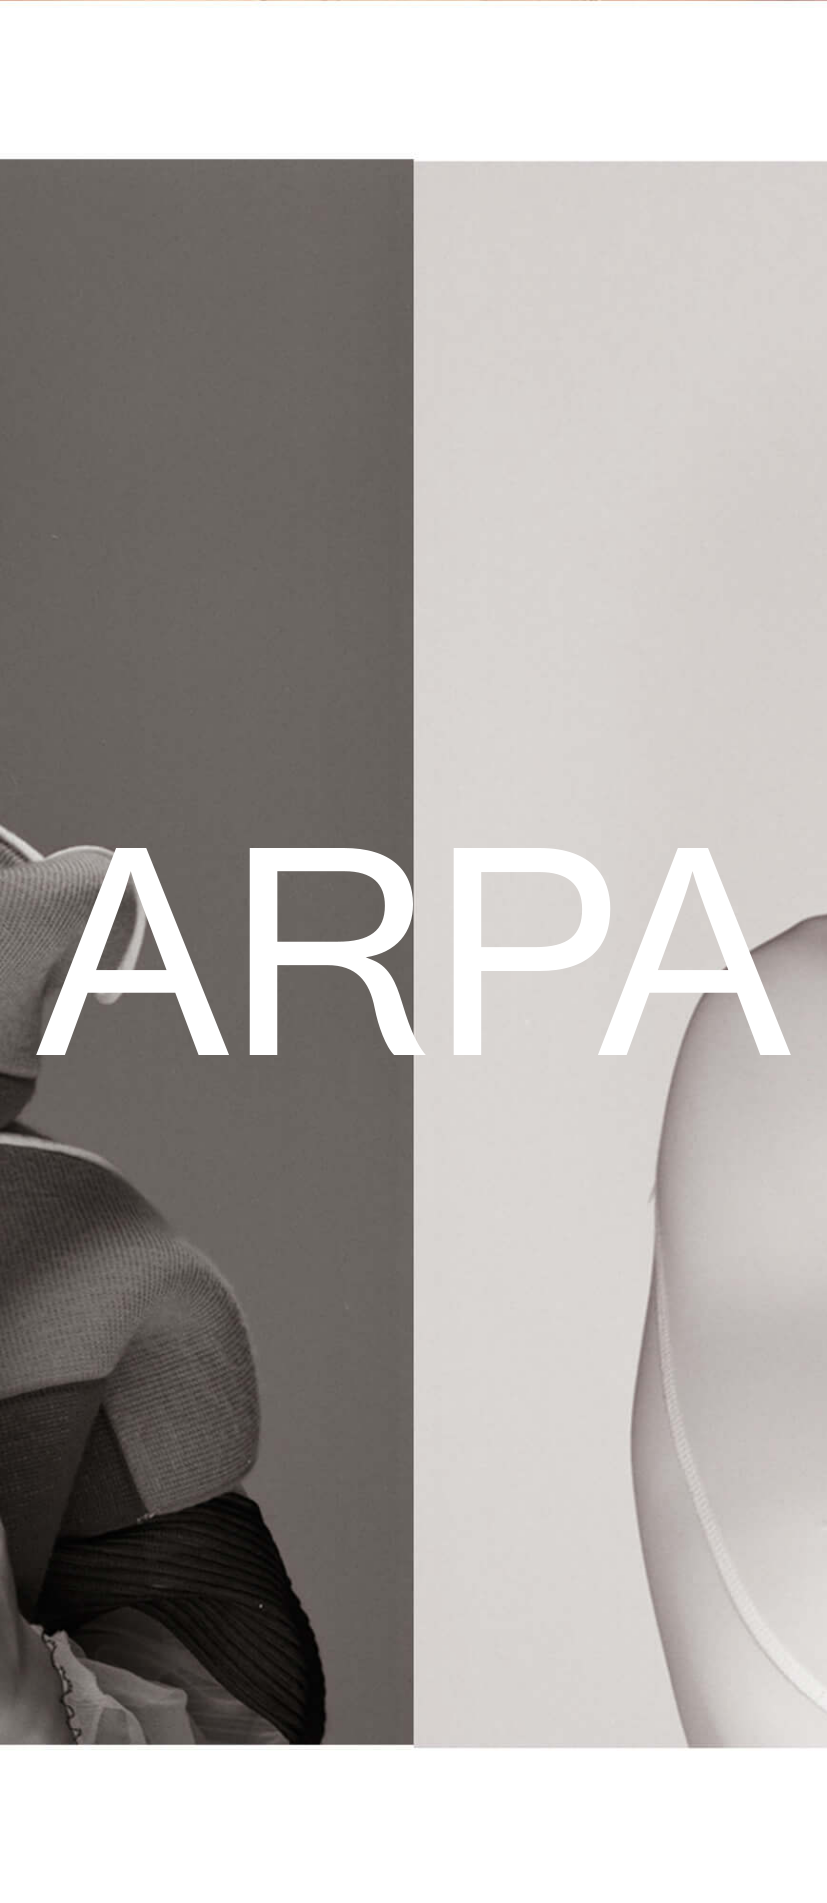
<svg xmlns="http://www.w3.org/2000/svg" width="827" height="1903" viewBox="0 0 827 1903">
  <rect width="100%" height="100%" fill="#fff"/>
  <image x="0" y="0" width="827" height="1751" href="images/1.png"/>
  <image x="36" y="848" width="755" height="207" href="images/2.png"/>
</svg>
